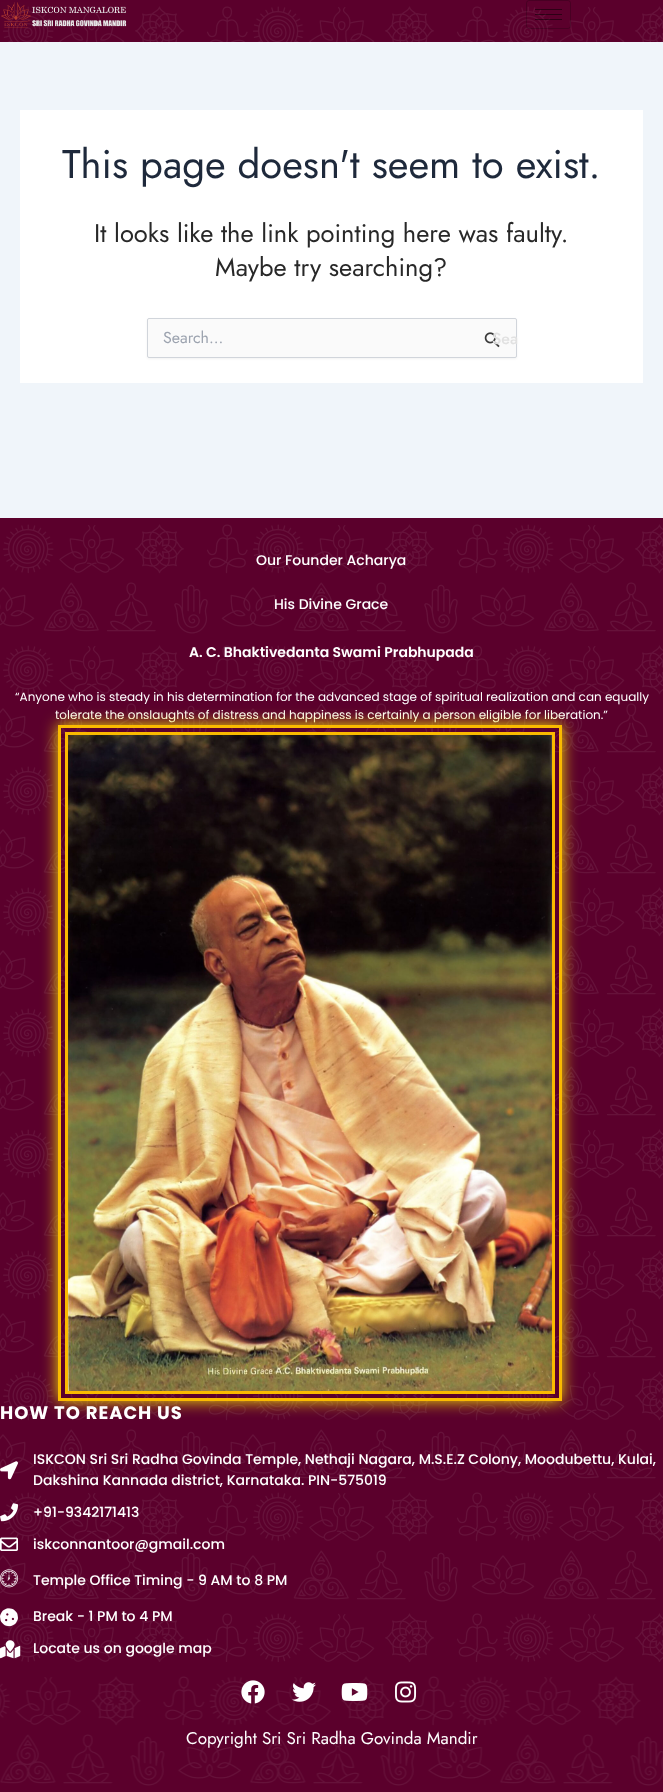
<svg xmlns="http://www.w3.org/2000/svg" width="663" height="1792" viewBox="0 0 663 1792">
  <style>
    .t1 { font: 40px Jost; fill: #1e293b; }
    .t2 { font: 25.5px Jost; fill: #282828; }
    .t3 { font: 16px Jost; fill: #9ca3af; }
    .t4 { font: 500 16px Jost; fill: #e1e1e1; }
    .t5 { font: 500 14px Poppins; fill: #fff; }
    .t6 { font: 600 14px Poppins; fill: #fff; }
    .t7 { font: 12px Poppins; fill: #fff; }
    .t8 { font: bold 18px Poppins; letter-spacing: 1px; fill: #fff; }
    .t9 { font: 17px Jost; fill: #fff; }
  </style>
  <defs>
    <clipPath id="clip1"><path d="M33 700H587V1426H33ZM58 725H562V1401H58Z" clip-rule="evenodd"/></clipPath>
  </defs>
  <rect width="100%" height="100%" fill="#f0f5fa"/>
  <rect x="0" y="0" width="663" height="42" fill="#5b002c"/>
  <rect x="535" y="9" width="27" height="1" fill="#2e0016"/>
  <image x="3" y="6" width="660" height="36" href="images/1.png"/>
  <image x="1" y="2" width="126" height="26" href="images/2.png"/>
  <rect x="526.5" y="0.5" width="44" height="28" rx="2.5" fill="none" stroke="#00000033"/>
  <rect x="535" y="14" width="27" height="1" fill="#00000080"/>
  <rect x="535" y="19" width="27" height="1" fill="#00000080"/>
  <rect x="20" y="110" width="623" height="273" fill="#fff"/>
  <text x="62" y="178" class="t1">This page doesn't seem to exist.</text>
  <text x="94" y="242" class="t2">It looks like the link pointing here was faulty.</text>
  <text x="215" y="276" class="t2">Maybe try searching?</text>
  <rect x="147" y="319" width="370" height="40" rx="2" fill="#0000000d" filter="blur(1px)"/>
  <rect x="147.5" y="318.5" width="369" height="39" rx="1.5" fill="#fafafa" stroke="#d1d5db"/>
  <text x="163" y="343" class="t3">Search...</text>
  <image x="484" y="332" width="16" height="16" href="images/3.png"/>
  <text x="492" y="344" class="t4">Sea</text>
  <rect x="0" y="518" width="663" height="1274" fill="#5b002c"/>
  <image x="0" y="524" width="663" height="1138" href="images/4.png"/>
  <text x="256" y="565" class="t5">Our Founder Acharya</text>
  <text x="274" y="609" class="t5">His Divine Grace</text>
  <text x="189" y="657" class="t6">A. C. Bhaktivedanta Swami Prabhupada</text>
  <text x="15" y="701" class="t7">“Anyone who is steady in his determination for the advanced stage of spiritual realization and can equally</text>
  <text x="55" y="719" class="t7">tolerate the onslaughts of distress and happiness is certainly a person eligible for liberation.”</text>
  <g clip-path="url(#clip1)">
    <rect x="58" y="725" width="504" height="676" fill="#f7e102" filter="blur(8px)"/>
  </g>
  <rect x="59.5" y="726.5" width="501" height="673" fill="none" stroke="#faba00" stroke-width="3"/>
  <rect x="66.5" y="733.5" width="487" height="659" fill="none" stroke="#faba00" stroke-width="3"/>
  <image x="68" y="735" width="484" height="656" href="images/5.png"/>
  <text x="0" y="1419" class="t8">HOW TO REACH US</text>
  <image x="0" y="1461" width="18" height="19" href="images/6.png"/>
  <text x="33" y="1464" class="t5">ISKCON Sri Sri Radha Govinda Temple, Nethaji Nagara, M.S.E.Z Colony, Moodubettu, Kulai,</text>
  <text x="33" y="1485" class="t5">Dakshina Kannada district, Karnataka. PIN-575019</text>
  <image x="0" y="1503" width="18" height="19" href="images/7.png"/>
  <text x="33" y="1517" class="t5">+91-9342171413</text>
  <image x="0" y="1537" width="18" height="14" href="images/8.png"/>
  <text x="33" y="1549" class="t5">iskconnantoor@gmail.com</text>
  <image x="0" y="1569" width="18" height="19" href="images/9.png"/>
  <text x="33" y="1585" class="t5">Temple Office Timing - 9 AM to 8 PM</text>
  <image x="0" y="1608" width="18" height="19" href="images/10.png"/>
  <text x="33" y="1621" class="t5">Break - 1 PM to 4 PM</text>
  <image x="0" y="1640" width="21" height="19" href="images/11.png"/>
  <text x="33" y="1653" class="t5">Locate us on google map</text>
  <image x="0" y="1676" width="663" height="110" href="images/12.png"/>
  <image x="241" y="1680" width="24" height="24" href="images/13.png"/>
  <image x="292" y="1682" width="24" height="20" href="images/14.png"/>
  <image x="341" y="1683" width="27" height="18" href="images/15.png"/>
  <image x="395" y="1681" width="22" height="22" href="images/16.png"/>
  <text x="186" y="1744" class="t9">Copyright Sri Sri Radha Govinda Mandir</text>
</svg>
